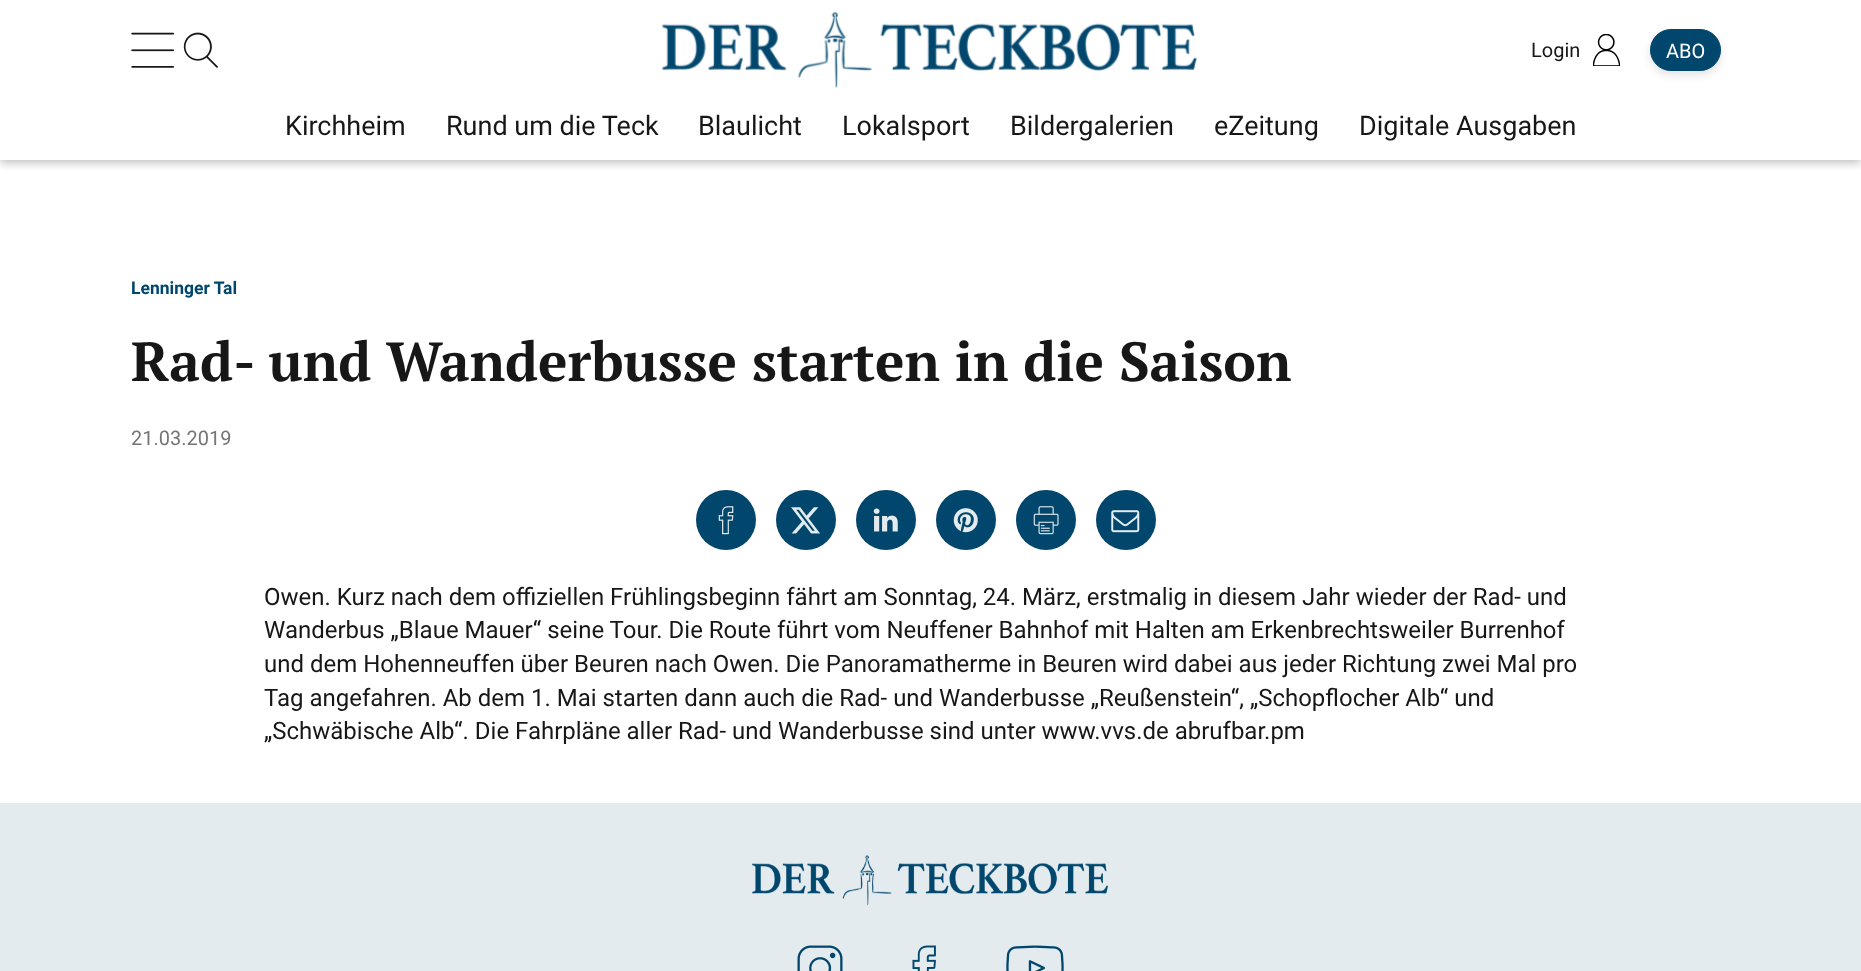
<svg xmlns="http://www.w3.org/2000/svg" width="1861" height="971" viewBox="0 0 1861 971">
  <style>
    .t1 { font: 20px Roboto; fill: #171717; }
    .t2 { font: 20px Roboto; fill: #fff; }
    .t3 { font: 27px Roboto; fill: #171717; }
    .t4 { font: bold 17.5px Roboto; fill: #01476d; }
    .t5 { font: bold 55px PT Serif; fill: #171717; }
    .t6 { font: 20px Roboto; fill: #757575; }
    .t7 { font: 24px Roboto; fill: #171717; }
  </style>
  <defs>
    <clipPath id="clip1"><rect x="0" y="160" width="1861" height="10"/></clipPath>
  </defs>
  <rect width="100%" height="100%" fill="#fff"/>
  <g clip-path="url(#clip1)">
    <rect x="0" y="3" width="1861" height="160" fill="#00000040" filter="blur(5px)"/>
  </g>
  <image x="131" y="32" width="44" height="36" href="images/1.png"/>
  <image x="183" y="32" width="35" height="36" href="images/2.png"/>
  <image x="661" y="11" width="536" height="77" href="images/3.png"/>
  <image x="1593" y="34" width="27" height="32" href="images/4.png"/>
  <text x="1531" y="57" class="t1">Login</text>
  <rect x="1650" y="33" width="71" height="42" rx="21" fill="#0000001c" filter="blur(4px)"/>
  <rect x="1650.5" y="29.5" width="70" height="41" rx="20.5" fill="#01476d" stroke="#01476d"/>
  <text x="1666" y="58" class="t2">ABO</text>
  <text x="285" y="135" class="t3">Kirchheim</text>
  <text x="446" y="135" class="t3">Rund um die Teck</text>
  <text x="698" y="135" class="t3">Blaulicht</text>
  <text x="842" y="135" class="t3">Lokalsport</text>
  <text x="1010" y="135" class="t3">Bildergalerien</text>
  <text x="1214" y="135" class="t3">eZeitung</text>
  <text x="1359" y="135" class="t3">Digitale Ausgaben</text>
  <text x="131" y="294" class="t4">Lenninger Tal</text>
  <text x="131" y="381" class="t5">Rad- und Wanderbusse starten in die Saison</text>
  <text x="131" y="445" class="t6">21.03.2019</text>
  <circle cx="726" cy="520" r="30" fill="#01476d"/>
  <image x="718" y="506" width="16" height="29" href="images/5.png"/>
  <circle cx="806" cy="520" r="30" fill="#01476d"/>
  <image x="791" y="507" width="29" height="27" href="images/6.png"/>
  <circle cx="886" cy="520" r="30" fill="#01476d"/>
  <image x="873" y="508" width="25" height="24" href="images/7.png"/>
  <circle cx="966" cy="520" r="30" fill="#01476d"/>
  <image x="953" y="508" width="25" height="25" href="images/8.png"/>
  <circle cx="1046" cy="520" r="30" fill="#01476d"/>
  <image x="1033" y="506" width="26" height="29" href="images/9.png"/>
  <circle cx="1126" cy="520" r="30" fill="#01476d"/>
  <image x="1111" y="510" width="29" height="23" href="images/10.png"/>
  <text x="264" y="605" class="t7">Owen. Kurz nach dem offiziellen Frühlingsbeginn fährt am Sonntag, 24. März, erstmalig in diesem Jahr wieder der Rad- und</text>
  <text x="264" y="638" class="t7">Wanderbus „Blaue Mauer“ seine Tour. Die Route führt vom Neuffener Bahnhof mit Halten am Erkenbrechtsweiler Burrenhof</text>
  <text x="264" y="672" class="t7">und dem Hohenneuffen über Beuren nach Owen. Die Panoramatherme in Beuren wird dabei aus jeder Richtung zwei Mal pro</text>
  <text x="264" y="706" class="t7">Tag angefahren. Ab dem 1. Mai starten dann auch die Rad- und Wanderbusse „Reußenstein“, „Schopflocher Alb“ und</text>
  <text x="264" y="739" class="t7">„Schwäbische Alb“. Die Fahrpläne aller Rad- und Wanderbusse sind unter www.vvs.de abrufbar.pm</text>
  <rect x="0" y="803" width="1861" height="168" fill="#e4ebee"/>
  <image x="752" y="855" width="356" height="51" href="images/11.png"/>
  <image x="797" y="945" width="46" height="26" href="images/12.png"/>
  <image x="912" y="945" width="24" height="26" href="images/13.png"/>
  <image x="1006" y="945" width="58" height="26" href="images/14.png"/>
</svg>
